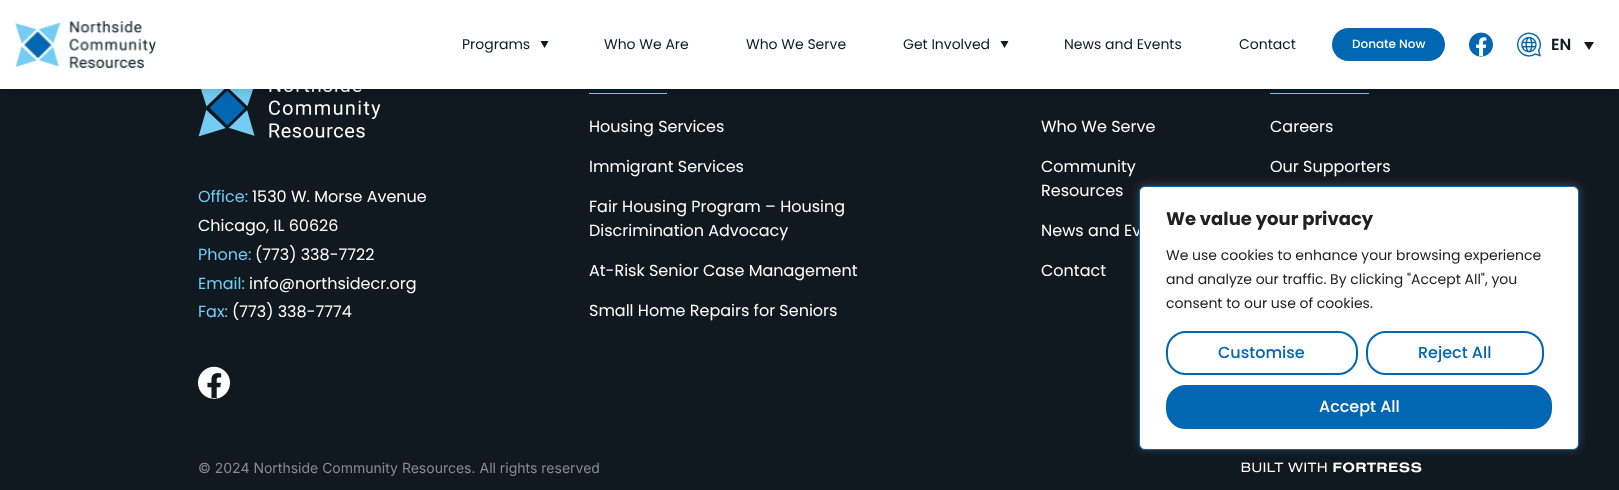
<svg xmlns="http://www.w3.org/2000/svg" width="1619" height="490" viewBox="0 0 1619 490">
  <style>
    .t1 { font: 14px Poppins; fill: #101820; }
    .t2 { font: 500 12px Poppins; fill: #fff; }
    .t3 { font: 600 16px Poppins; fill: #101820; }
    .t4 { font: 16px Poppins; fill: #74ccf4; }
    .t5 { font: 16px Poppins; fill: #fff; }
    .t6 { font: 14px Inter; fill: #888c90; }
    .t7 { font: bold 18px Poppins; fill: #212121; }
    .t8 { font: 14px Poppins; fill: #212121; }
    .t9 { font: 500 16px Poppins; fill: #0167b2; }
    .t10 { font: 500 16px Poppins; fill: #fff; }
  </style>
  <rect width="100%" height="100%" fill="#101820"/>
  <image x="198" y="89" width="183" height="49" href="images/4.png"/>
  <rect x="589" y="93" width="78" height="1" fill="#74ccf4"/>
  <rect x="1270" y="93" width="99" height="1" fill="#74ccf4"/>
  <rect x="5" y="7" width="1609" height="79" fill="#0000004d" filter="blur(7px)"/>
  <rect x="0" y="0" width="1619" height="89" fill="#fff"/>
  <image x="15" y="21" width="141" height="48" href="images/1.png"/>
  <text x="462" y="49" class="t1">Programs</text>
  <path d="M544.5 48L540.5 41H548.5Z" fill="#101820"/>
  <text x="604" y="49" class="t1">Who We Are</text>
  <text x="746" y="49" class="t1">Who We Serve</text>
  <text x="903" y="49" class="t1">Get Involved</text>
  <path d="M1004.5 48L1000.5 41H1008.5Z" fill="#101820"/>
  <text x="1064" y="49" class="t1">News and Events</text>
  <text x="1239" y="49" class="t1">Contact</text>
  <rect x="1332" y="28" width="113" height="33" rx="16.5" fill="#0167b2"/>
  <text x="1352" y="48" class="t2">Donate Now</text>
  <image x="1469" y="32" width="24" height="25" href="images/2.png"/>
  <image x="1517" y="32" width="24" height="25" href="images/3.png"/>
  <text x="1551" y="50" class="t3">EN</text>
  <path d="M1584 42H1594L1589 50Z" fill="#101820"/>
  <text x="198" y="202" class="t4">Office:</text>
  <text x="252" y="202" class="t5">1530 W. Morse Avenue</text>
  <text x="198" y="231" class="t5">Chicago, IL 60626</text>
  <text x="198" y="260" class="t4">Phone:</text>
  <text x="255" y="260" class="t5">(773) 338-7722</text>
  <text x="198" y="289" class="t4">Email:</text>
  <text x="249" y="289" class="t5">info@northsidecr.org</text>
  <text x="198" y="317" class="t4">Fax:</text>
  <text x="232" y="317" class="t5">(773) 338-7774</text>
  <image x="198" y="366" width="32" height="33" href="images/5.png"/>
  <text x="589" y="132" class="t5">Housing Services</text>
  <text x="589" y="172" class="t5">Immigrant Services</text>
  <text x="589" y="212" class="t5">Fair Housing Program – Housing</text>
  <text x="589" y="236" class="t5">Discrimination Advocacy</text>
  <text x="589" y="276" class="t5">At-Risk Senior Case Management</text>
  <text x="589" y="316" class="t5">Small Home Repairs for Seniors</text>
  <text x="1041" y="132" class="t5">Who We Serve</text>
  <text x="1041" y="172" class="t5">Community</text>
  <text x="1041" y="196" class="t5">Resources</text>
  <text x="1041" y="236" class="t5">News and Ev</text>
  <text x="1041" y="276" class="t5">Contact</text>
  <text x="1270" y="132" class="t5">Careers</text>
  <text x="1270" y="172" class="t5">Our Supporters</text>
  <text x="198" y="473" class="t6">© 2024 Northside Community Resources. All rights reserved</text>
  <image x="1241" y="462" width="181" height="11" href="images/6.png"/>
  <rect x="1139" y="185" width="440" height="264" rx="6" fill="#acabab4d" filter="blur(5px)"/>
  <rect x="1139.5" y="186.5" width="439" height="263" rx="5.5" fill="#fff" stroke="#0167b2"/>
  <text x="1166" y="225" class="t7">We value your privacy</text>
  <text x="1166" y="260" class="t8">We use cookies to enhance your browsing experience</text>
  <text x="1166" y="284" class="t8">and analyze our traffic. By clicking "Accept All", you</text>
  <text x="1166" y="308" class="t8">consent to our use of cookies.</text>
  <rect x="1167" y="332" width="190" height="42" rx="19" fill="none" stroke="#0167b2" stroke-width="2"/>
  <text x="1218" y="358" class="t9">Customise</text>
  <rect x="1367" y="332" width="176" height="42" rx="19" fill="none" stroke="#0167b2" stroke-width="2"/>
  <text x="1418" y="358" class="t9">Reject All</text>
  <rect x="1167" y="386" width="384" height="42" rx="19" fill="#0167b2" stroke="#0167b2" stroke-width="2"/>
  <text x="1319" y="412" class="t10">Accept All</text>
</svg>
